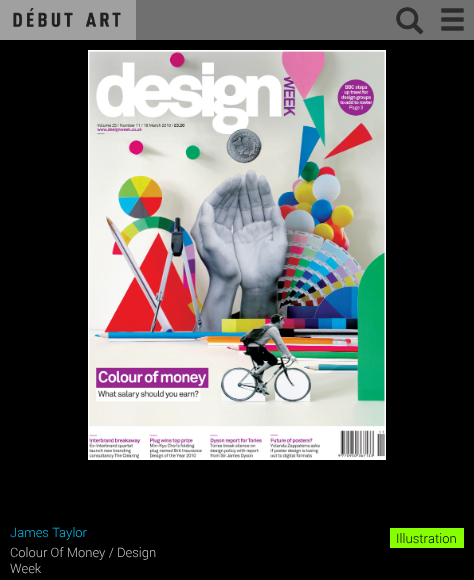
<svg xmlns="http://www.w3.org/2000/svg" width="474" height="580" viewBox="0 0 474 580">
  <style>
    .t1 { font: 300 13px Roboto; fill: #00bbea; }
    .t2 { font: 300 13px Roboto; fill: #000; }
    .t3 { font: 300 13px Roboto; fill: #c0c0c0; }
  </style>
  <rect width="100%" height="100%" fill="#000"/>
  <rect x="136" y="0" width="338" height="40" fill="#707070"/>
  <rect x="0" y="0" width="136" height="40" fill="#a0a0a0"/>
  <image x="13" y="8" width="108" height="19" href="images/1.png"/>
  <image x="396" y="7" width="28" height="28" href="images/2.png"/>
  <image x="441" y="8" width="23" height="23" href="images/3.png"/>
  <image x="88" y="50" width="298" height="410" href="images/4.png"/>
  <text x="10" y="537" class="t1">James Taylor</text>
  <rect x="390" y="528" width="74" height="20" fill="#8f0"/>
  <text x="396" y="543" class="t2">Illustration</text>
  <text x="10" y="557" class="t3">Colour Of Money / Design</text>
  <text x="10" y="573" class="t3">Week</text>
</svg>
